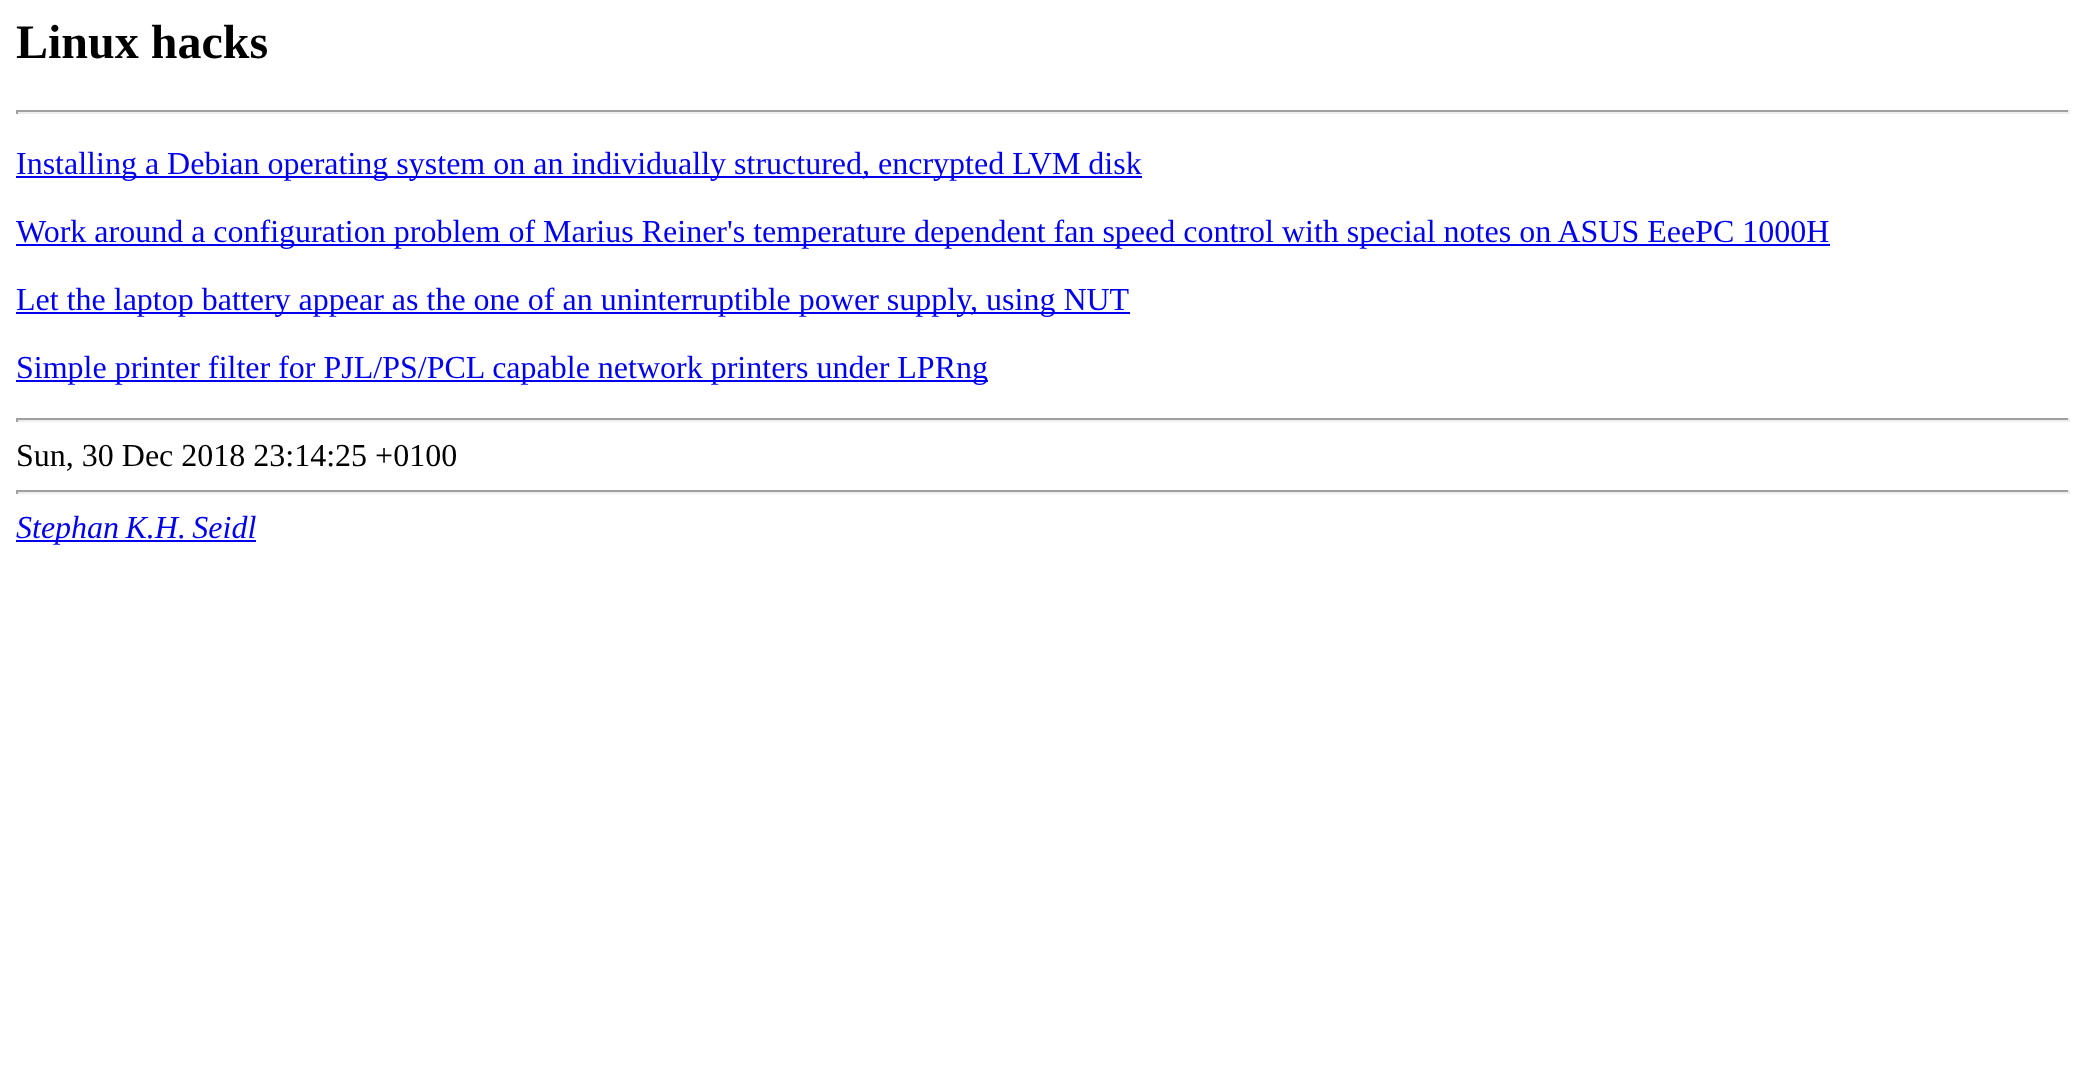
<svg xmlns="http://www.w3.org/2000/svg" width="2085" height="1082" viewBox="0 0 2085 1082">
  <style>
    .t1 { font: bold 48px Liberation Serif; fill: #000; }
    .t2 { font: 32px Liberation Serif; fill: #00e; }
    .t3 { font: 32px Liberation Serif; fill: #000; }
    .t4 { font: italic 32px Liberation Serif; fill: #00e; }
  </style>
  <rect width="100%" height="100%" fill="#fff"/>
  <text x="16" y="58" class="t1">Linux hacks</text>
  <rect x="16" y="110" width="2054" height="2" fill="#9f9f9f"/>
  <rect x="2068" y="110" width="2" height="4" fill="#eee"/>
  <rect x="16" y="112" width="2054" height="2" fill="#eee"/>
  <rect x="16" y="110" width="2" height="4" fill="#9f9f9f"/>
  <rect x="16" y="176" width="1126" height="2" fill="#00e"/>
  <text x="16" y="174" class="t2">Installing a Debian operating system on an individually structured, encrypted LVM disk</text>
  <rect x="16" y="244" width="1814" height="2" fill="#00e"/>
  <text x="16" y="242" class="t2">Work around a configuration problem of Marius Reiner's temperature dependent fan speed control with special notes on ASUS EeePC 1000H</text>
  <rect x="16" y="312" width="1114" height="2" fill="#00e"/>
  <text x="16" y="310" class="t2">Let the laptop battery appear as the one of an uninterruptible power supply, using NUT</text>
  <rect x="16" y="380" width="972" height="2" fill="#00e"/>
  <text x="16" y="378" class="t2">Simple printer filter for PJL/PS/PCL capable network printers under LPRng</text>
  <rect x="16" y="418" width="2054" height="2" fill="#9f9f9f"/>
  <rect x="2068" y="418" width="2" height="4" fill="#eee"/>
  <rect x="16" y="420" width="2054" height="2" fill="#eee"/>
  <rect x="16" y="418" width="2" height="4" fill="#9f9f9f"/>
  <text x="16" y="466" class="t3">Sun, 30 Dec 2018 23:14:25 +0100</text>
  <rect x="16" y="490" width="2054" height="2" fill="#9f9f9f"/>
  <rect x="2068" y="490" width="2" height="4" fill="#eee"/>
  <rect x="16" y="492" width="2054" height="2" fill="#eee"/>
  <rect x="16" y="490" width="2" height="4" fill="#9f9f9f"/>
  <rect x="16" y="540" width="240" height="2" fill="#00e"/>
  <text x="16" y="538" class="t4">Stephan K.H. Seidl</text>
</svg>
